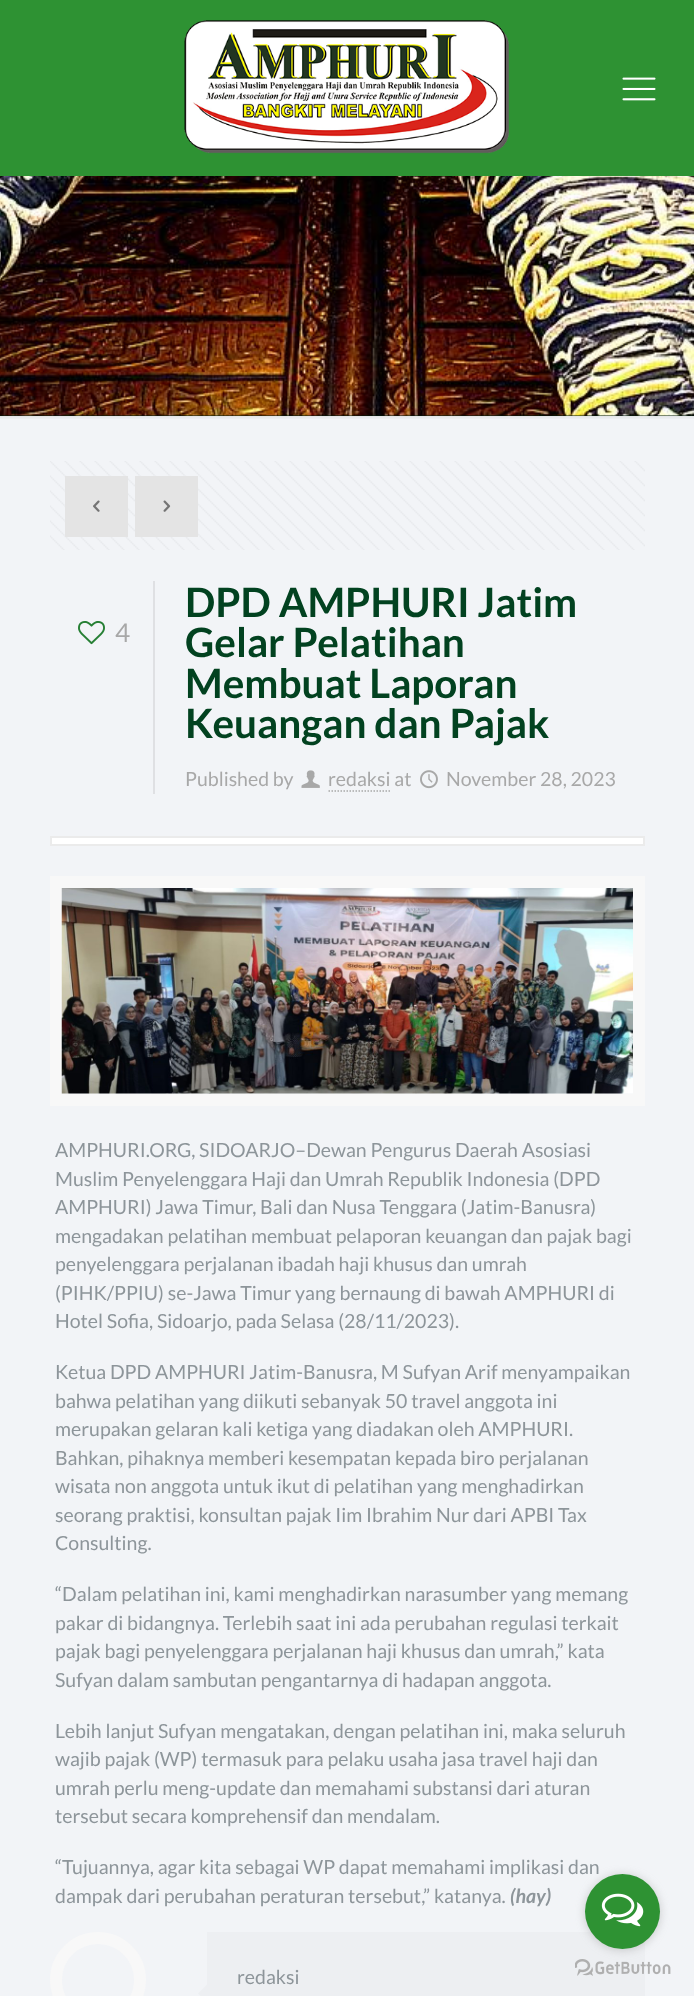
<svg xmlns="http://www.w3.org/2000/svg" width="694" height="1996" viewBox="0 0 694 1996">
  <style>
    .t1 { font: 26px Lato; fill: #a8a8a8; }
    .t2 { font: bold 40.5px Lato; fill: #024220; }
    .t3 { font: 19.5px Lato; fill: #a8a8a8; }
    .t4 { font: 19.5px Lato; fill: #8d959a; }
    .t5 { font: italic bold 19.5px Lato; fill: #8d959a; }
  </style>
  <rect width="100%" height="100%" fill="#f2f4f7"/>
  <rect x="0" y="415" width="694" height="1" fill="#001f0d"/>
  <image x="0" y="176" width="694" height="240" href="images/1.png"/>
  <rect x="0" y="0" width="694" height="176" fill="#2e9233"/>
  <image x="184" y="20" width="325" height="134" href="images/2.png"/>
  <image x="622" y="77" width="34" height="24" href="images/3.png"/>
  <image x="0" y="415" width="694" height="4" href="images/4.png"/>
  <image x="50" y="461" width="595" height="89" href="images/5.png"/>
  <rect x="65" y="476" width="63" height="61" fill="#e4e4e4"/>
  <image x="93" y="500" width="7" height="12" href="images/6.png"/>
  <rect x="135" y="476" width="63" height="61" fill="#e4e4e4"/>
  <image x="163" y="500" width="8" height="12" href="images/7.png"/>
  <image x="78" y="621" width="27" height="24" href="images/8.png"/>
  <text x="115" y="642" class="t1">4</text>
  <rect x="153" y="581" width="2" height="213" fill="#dfe0e3"/>
  <text x="185" y="617" class="t2">DPD AMPHURI Jatim</text>
  <text x="185" y="657" class="t2">Gelar Pelatihan</text>
  <text x="185" y="698" class="t2">Membuat Laporan</text>
  <text x="185" y="738" class="t2">Keuangan dan Pajak</text>
  <text x="185" y="786" class="t3">Published by</text>
  <image x="301" y="770" width="19" height="18" href="images/9.png"/>
  <text x="328" y="786" class="t3">redaksi at</text>
  <path d="M328.5 791H390" fill="none" stroke="#a8a8a8" stroke-width="1.5" stroke-dasharray="1.5 1.5"/>
  <image x="420" y="770" width="18" height="19" href="images/10.png"/>
  <text x="446" y="786" class="t3">November 28, 2023</text>
  <rect x="51" y="837" width="593" height="8" fill="#fff" stroke="#ebebeb" stroke-width="2"/>
  <rect x="56" y="882" width="583" height="218" fill="none" stroke="#f8f8f8" stroke-width="12"/>
  <image x="61" y="888" width="572" height="206" href="images/11.png"/>
  <text x="55" y="1157" class="t4">AMPHURI.ORG, SIDOARJO–Dewan Pengurus Daerah Asosiasi</text>
  <text x="55" y="1186" class="t4">Muslim Penyelenggara Haji dan Umrah Republik Indonesia (DPD</text>
  <text x="55" y="1214" class="t4">AMPHURI) Jawa Timur, Bali dan Nusa Tenggara (Jatim-Banusra)</text>
  <text x="55" y="1243" class="t4">mengadakan pelatihan membuat pelaporan keuangan dan pajak bagi</text>
  <text x="55" y="1271" class="t4">penyelenggara perjalanan ibadah haji khusus dan umrah</text>
  <text x="55" y="1300" class="t4">(PIHK/PPIU) se-Jawa Timur yang bernaung di bawah AMPHURI di</text>
  <text x="55" y="1328" class="t4">Hotel Sofia, Sidoarjo, pada Selasa (28/11/2023).</text>
  <text x="55" y="1379" class="t4">Ketua DPD AMPHURI Jatim-Banusra, M Sufyan Arif menyampaikan</text>
  <text x="55" y="1408" class="t4">bahwa pelatihan yang diikuti sebanyak 50 travel anggota ini</text>
  <text x="55" y="1436" class="t4">merupakan gelaran kali ketiga yang diadakan oleh AMPHURI.</text>
  <text x="55" y="1465" class="t4">Bahkan, pihaknya memberi kesempatan kepada biro perjalanan</text>
  <text x="55" y="1493" class="t4">wisata non anggota untuk ikut di pelatihan yang menghadirkan</text>
  <text x="55" y="1522" class="t4">seorang praktisi, konsultan pajak Iim Ibrahim Nur dari APBI Tax</text>
  <text x="55" y="1550" class="t4">Consulting.</text>
  <text x="55" y="1601" class="t4">“Dalam pelatihan ini, kami menghadirkan narasumber yang memang</text>
  <text x="55" y="1630" class="t4">pakar di bidangnya. Terlebih saat ini ada perubahan regulasi terkait</text>
  <text x="55" y="1658" class="t4">pajak bagi penyelenggara perjalanan haji khusus dan umrah,” kata</text>
  <text x="55" y="1687" class="t4">Sufyan dalam sambutan pengantarnya di hadapan anggota.</text>
  <text x="55" y="1738" class="t4">Lebih lanjut Sufyan mengatakan, dengan pelatihan ini, maka seluruh</text>
  <text x="55" y="1766" class="t4">wajib pajak (WP) termasuk para pelaku usaha jasa travel haji dan</text>
  <text x="55" y="1795" class="t4">umrah perlu meng-update dan memahami substansi dari aturan</text>
  <text x="55" y="1823" class="t4">tersebut secara komprehensif dan mendalam.</text>
  <text x="55" y="1874" class="t4">“Tujuannya, agar kita sebagai WP dapat memahami implikasi dan</text>
  <text x="55" y="1903" class="t4">dampak dari perubahan peraturan tersebut,” katanya.</text>
  <text x="510" y="1903" class="t5">(hay)</text>
  <circle cx="98" cy="1980" r="42" fill="none" stroke="#f8f8f8" stroke-width="12"/>
  <rect x="207" y="1932" width="438" height="64" fill="#edeff2"/>
  <text x="237" y="1984" class="t4">redaksi</text>
  <path d="M207 1984.5V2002.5L198 1993.5Z" fill="#edeff2"/>
  <image x="575" y="1959" width="96" height="17" href="images/13.png"/>
  <rect x="585" y="1875" width="75" height="75" rx="37.5" fill="#88888866" filter="blur(5px)"/>
  <circle cx="622.5" cy="1911.5" r="37.5" fill="#2e9233"/>
  <image x="601" y="1893" width="43" height="34" href="images/12.png"/>
</svg>
